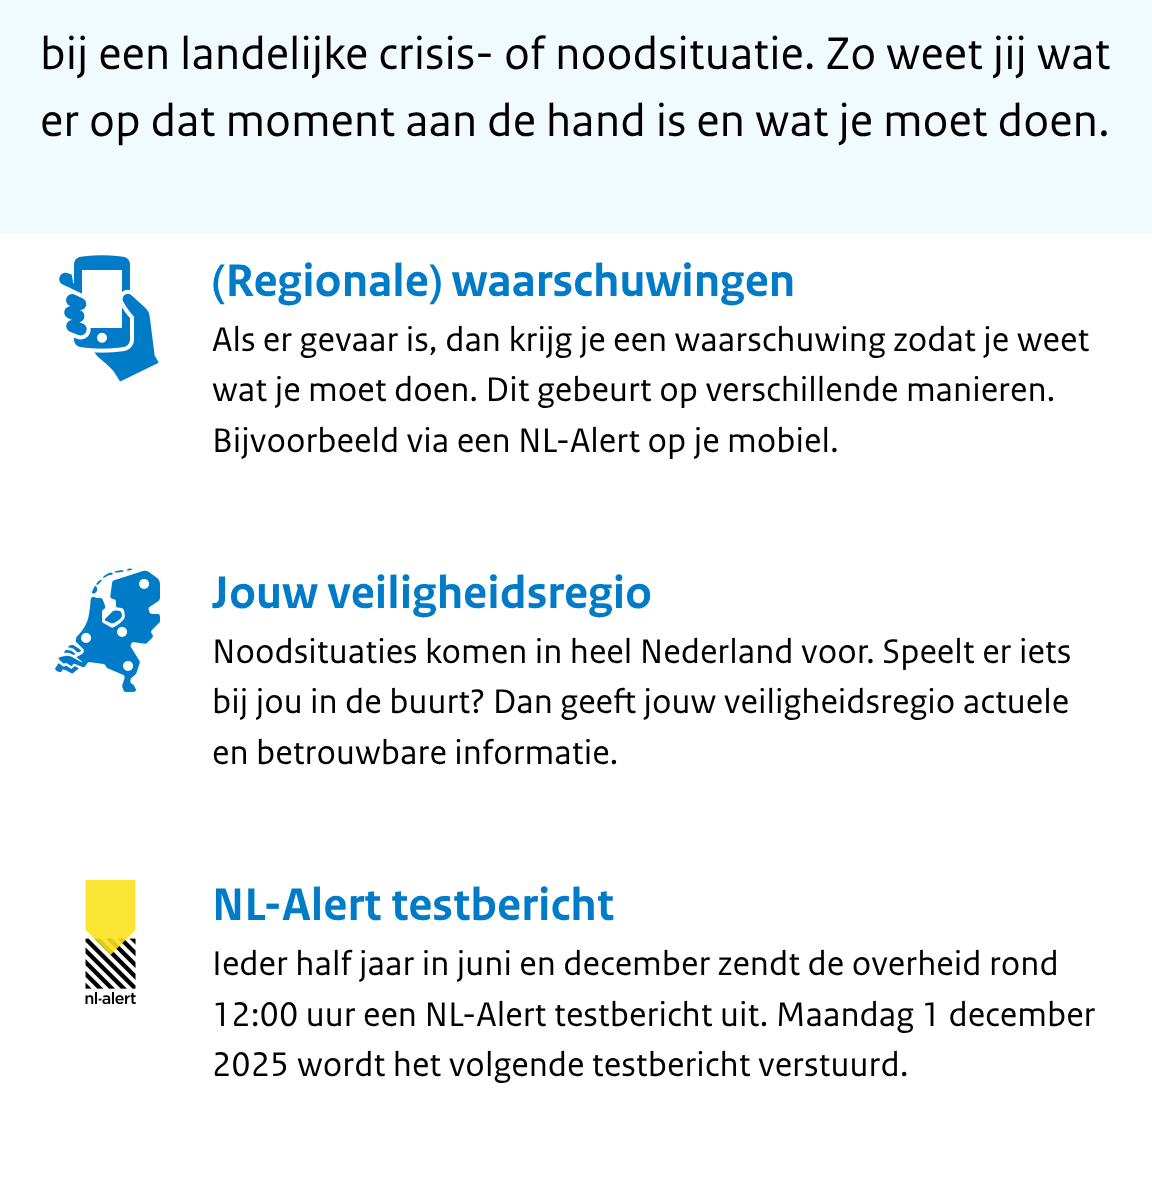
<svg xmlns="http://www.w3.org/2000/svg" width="1152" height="1180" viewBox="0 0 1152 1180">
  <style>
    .t1 { font: 48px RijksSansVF; fill: #000; }
    .t2 { font: bold 48px RijksSansVF; fill: #007bc7; }
    .t3 { font: 36px RijksSansVF; fill: #000; }
  </style>
  <rect width="100%" height="100%" fill="#fff"/>
  <rect x="0" y="0" width="1152" height="234" fill="#f1faff"/>
  <text x="40" y="69" class="t1">bij een landelijke crisis- of noodsituatie. Zo weet jij wat</text>
  <text x="40" y="136" class="t1">er op dat moment aan de hand is en wat je moet doen.</text>
  <image x="59" y="255" width="100" height="127" href="images/1.png"/>
  <text x="212" y="296" class="t2">(Regionale) waarschuwingen</text>
  <text x="212" y="351" class="t3">Als er gevaar is, dan krijg je een waarschuwing zodat je weet</text>
  <text x="212" y="401" class="t3">wat je moet doen. Dit gebeurt op verschillende manieren.</text>
  <text x="212" y="452" class="t3">Bijvoorbeeld via een NL-Alert op je mobiel.</text>
  <image x="55" y="568" width="106" height="124" href="images/2.png"/>
  <text x="212" y="608" class="t2">Jouw veiligheidsregio</text>
  <text x="212" y="663" class="t3">Noodsituaties komen in heel Nederland voor. Speelt er iets</text>
  <text x="212" y="713" class="t3">bij jou in de buurt? Dan geeft jouw veiligheidsregio actuele</text>
  <text x="212" y="764" class="t3">en betrouwbare informatie.</text>
  <image x="85" y="879" width="51" height="126" href="images/3.png"/>
  <text x="212" y="920" class="t2">NL-Alert testbericht</text>
  <text x="212" y="975" class="t3">Ieder half jaar in juni en december zendt de overheid rond</text>
  <text x="212" y="1026" class="t3">12:00 uur een NL-Alert testbericht uit. Maandag 1 december</text>
  <text x="212" y="1076" class="t3">2025 wordt het volgende testbericht verstuurd.</text>
</svg>
